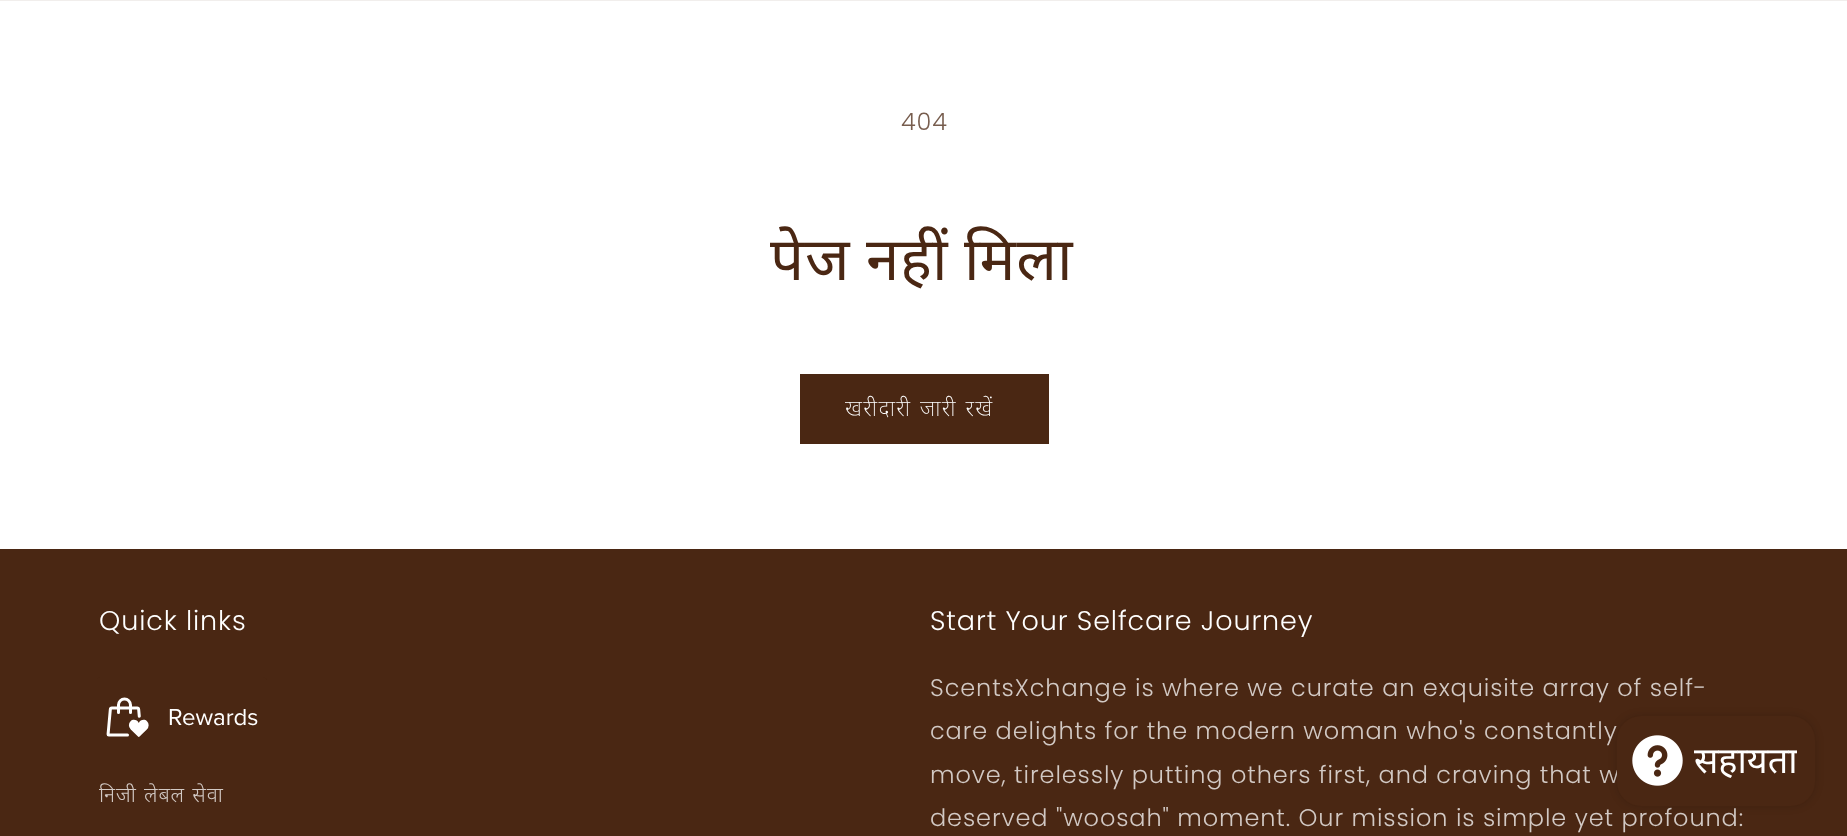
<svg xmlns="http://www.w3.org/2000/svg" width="1847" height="836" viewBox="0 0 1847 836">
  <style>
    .t1 { font: 300 24px Poppins; letter-spacing: 0.9px; fill: #775d4e; }
    .t2 { font: 60px Noto Sans; letter-spacing: 0.9px; fill: #4a2713; }
    .t3 { font: 200 22.5px Noto Sans; letter-spacing: 1.5px; fill: #fff; }
    .t4 { font: 300 27px Poppins; letter-spacing: 0.9px; fill: #fff; }
    .t5 { font: 300 21px Noto Sans; letter-spacing: 0.9px; fill: #d2c9c4; }
    .t6 { font: 300 24px Poppins; letter-spacing: 0.9px; fill: #d2c9c4; }
    .t7 { font: 36px Noto Sans; fill: #fff; }
  </style>
  <defs>
    <clipPath id="clip1"><rect x="1694" y="738" width="103" height="45"/></clipPath>
  </defs>
  <rect width="100%" height="100%" fill="#fff"/>
  <rect x="0" y="0" width="1847" height="1" fill="#f1eeec"/>
  <text x="901" y="130" class="t1">404</text>
  <text x="770" y="280" word-spacing="-1" class="t2">पेज नहीं मिला</text>
  <rect x="800" y="374" width="249" height="70" fill="#4a2713"/>
  <text x="845" y="416" word-spacing="1" class="t3">खरीदारी जारी रखें</text>
  <rect x="0" y="549" width="1847" height="287" fill="#4a2713"/>
  <text x="99" y="630" class="t4">Quick links</text>
  <text x="99" y="802" word-spacing="1" class="t5">निजी लेबल सेवा</text>
  <text x="930" y="630" class="t4">Start Your Selfcare Journey</text>
  <text x="930" y="696" class="t6">ScentsXchange is where we curate an exquisite array of self-</text>
  <text x="930" y="739" class="t6">care delights for the modern woman who's constantly</text>
  <text x="930" y="783" class="t6">move, tirelessly putting others first, and craving that w</text>
  <text x="930" y="826" class="t6">deserved "woosah" moment. Our mission is simple yet profound:</text>
  <image x="97" y="677" width="170" height="75" href="images/1.png"/>
  <rect x="1617" y="716" width="198" height="90" rx="24" fill="#00000026" filter="blur(4px)"/>
  <rect x="1617" y="716" width="198" height="90" rx="24" fill="#4a2713"/>
  <image x="1632" y="735" width="51" height="51" href="images/2.png"/>
  <g clip-path="url(#clip1)">
    <text x="1694" y="773" class="t7">सहायता</text>
  </g>
</svg>
